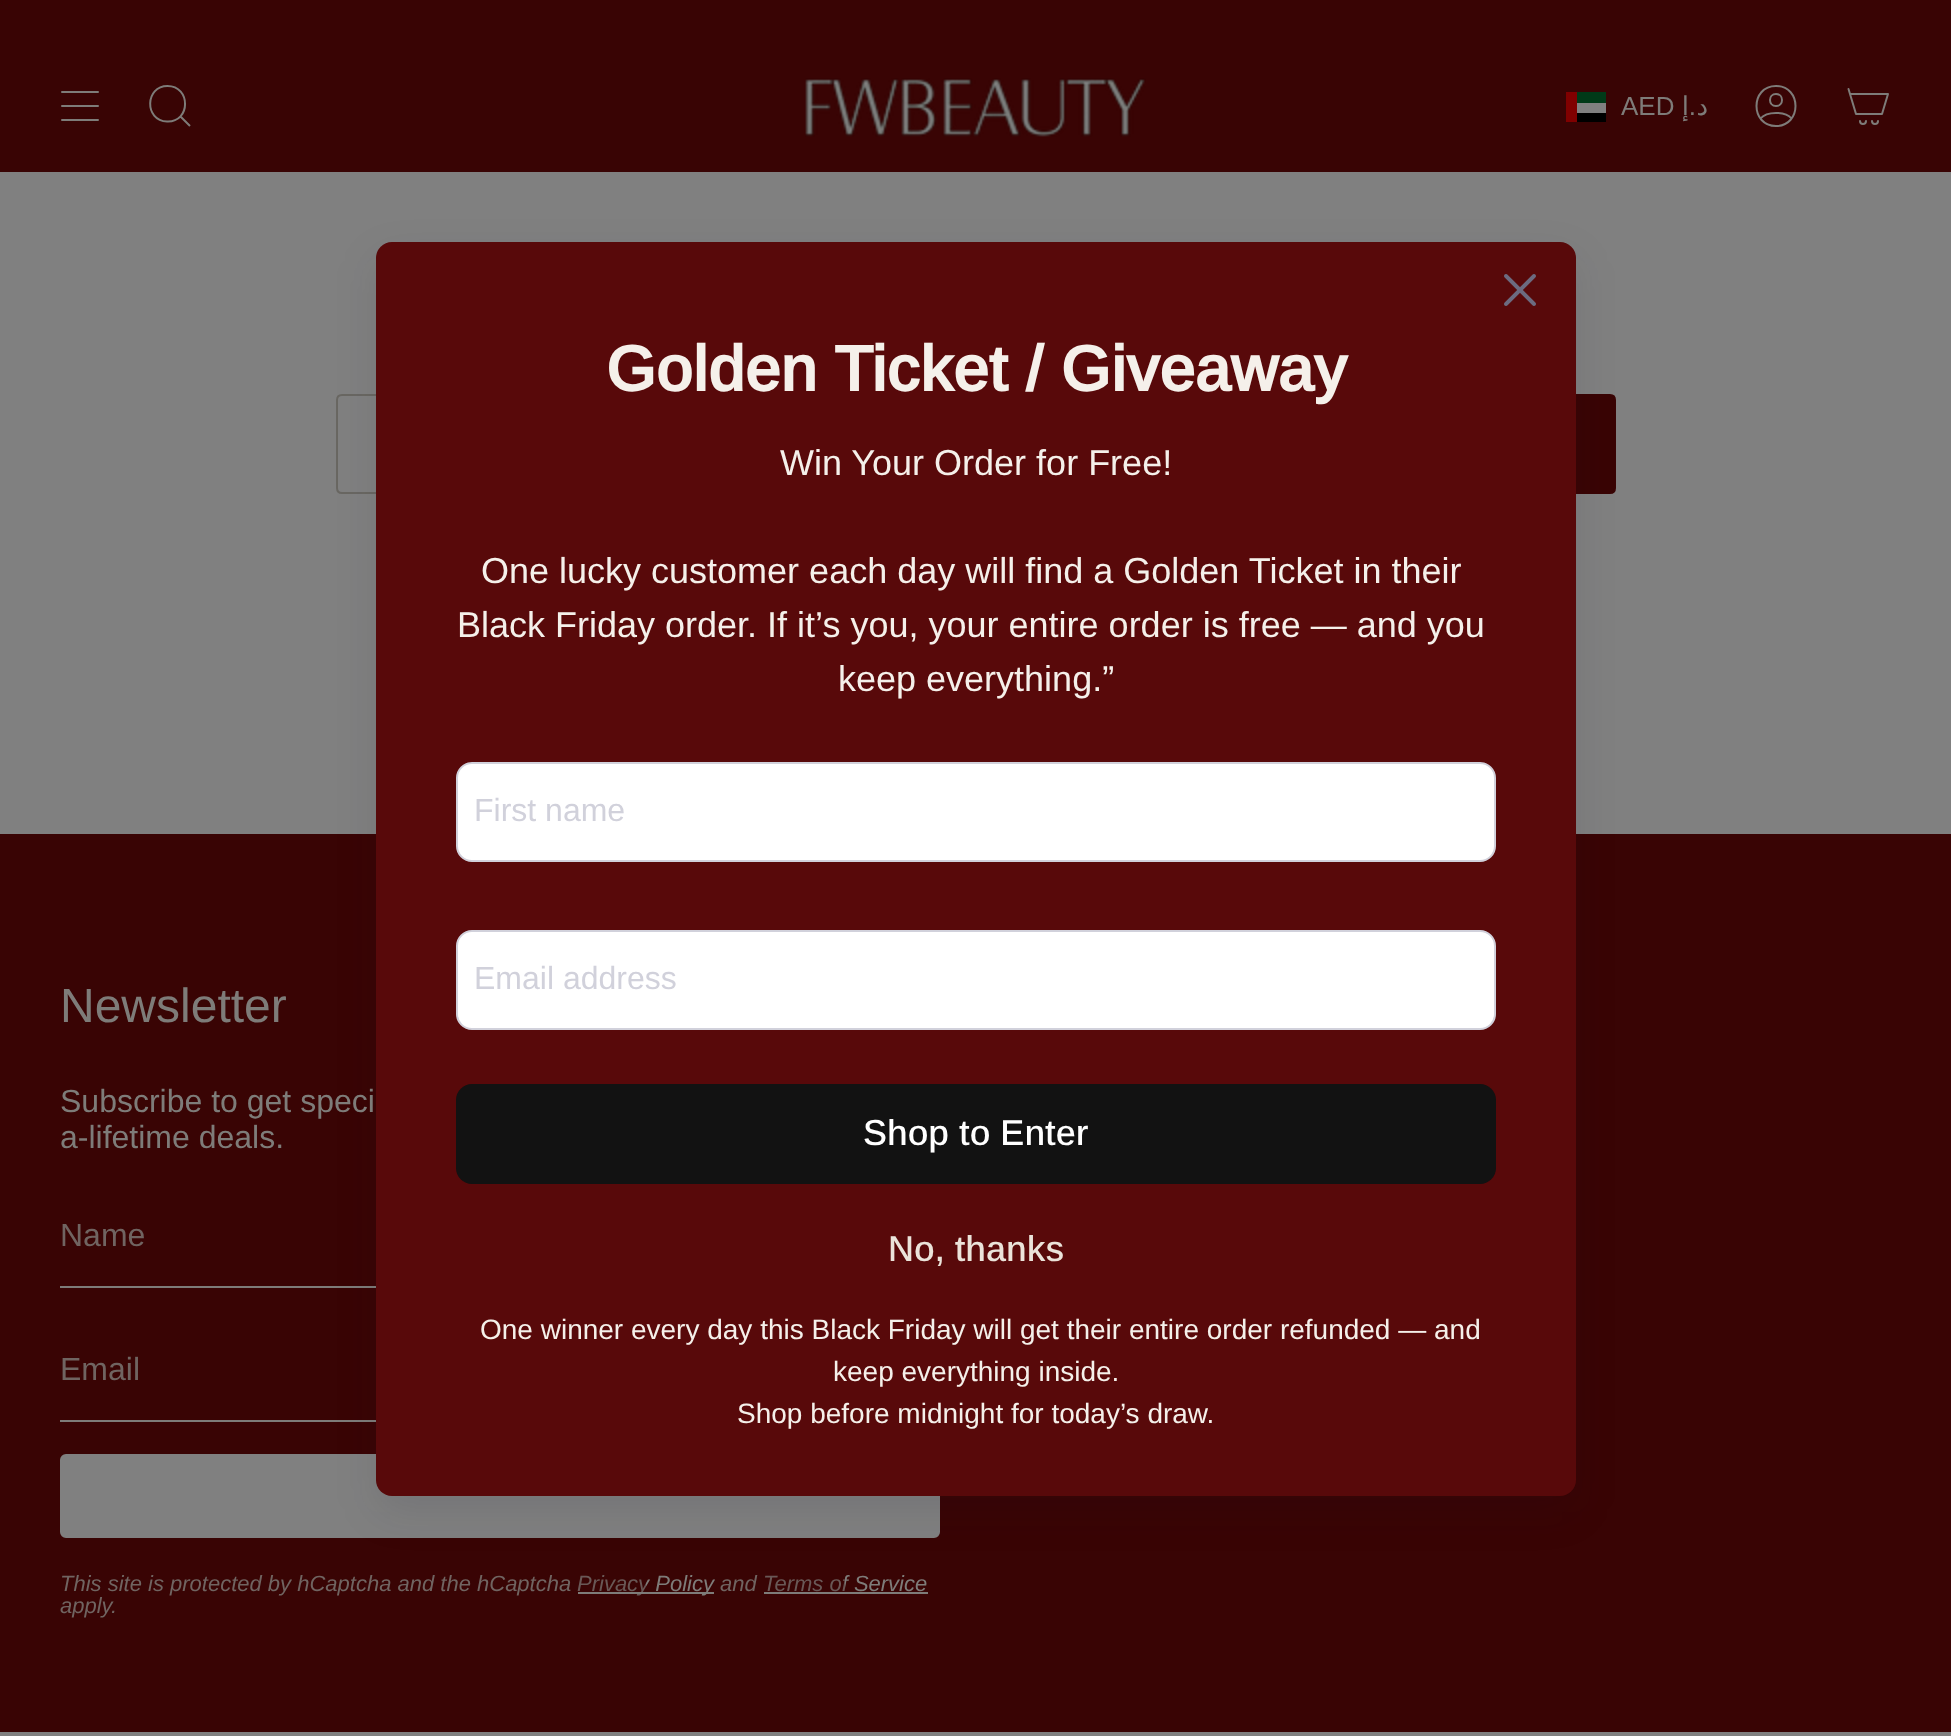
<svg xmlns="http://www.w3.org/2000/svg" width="1951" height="1736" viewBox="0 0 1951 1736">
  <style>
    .t1 { font: 26px Arimo; fill: #7e7c79; }
    .t2 { font: 26px DejaVu Sans; direction: rtl; fill: #7e7c79; }
    .t3 { font: 26px Arimo; direction: rtl; fill: #7e7c79; }
    .t4 { font: bold 64px Arimo; fill: #f5f0ea; }
    .t5 { font: 36px Arimo; fill: #f5f0ea; }
    .t6 { font: 32px Arimo; fill: #d1d1db; }
    .t7 { font: 500 36px Arimo; fill: #fff; }
    .t8 { font: 500 36px Arimo; fill: #ebe3da; }
    .t9 { font: 28px Arimo; fill: #f5f0ea; }
    .t10 { font: 48px Arimo; fill: #7e7c79; }
    .t11 { font: 32px Arimo; fill: #7e7c79; }
    .t12 { font: 32px Arimo; fill: #706461; }
    .t13 { font: italic 22px Arimo; fill: #706461; }
    .t14 { font: italic 22px Arimo; fill: url(#g1); }
    .t15 { font: italic 22px Arimo; fill: url(#g2); }
  </style>
  <defs>
    <clipPath id="clip1"><rect x="864" y="1084" width="224" height="100"/></clipPath>
    <linearGradient id="g1" gradientUnits="userSpaceOnUse" x1="577" y1="1583" x2="714" y2="1583"><stop offset="0" stop-color="#695856"/><stop offset="0.5" stop-color="#695856"/><stop offset="0.5" stop-color="#7e7c79"/><stop offset="1" stop-color="#7e7c79"/></linearGradient>
    <linearGradient id="g2" gradientUnits="userSpaceOnUse" x1="763" y1="1583" x2="927" y2="1583"><stop offset="0" stop-color="#695856"/><stop offset="0.5" stop-color="#695856"/><stop offset="0.5" stop-color="#7e7c79"/><stop offset="1" stop-color="#7e7c79"/></linearGradient>
  </defs>
  <rect width="100%" height="100%" fill="#808080"/>
  <rect x="0" y="0" width="1951" height="172" fill="#390404"/>
  <path d="M62 92H98M62 106H98M62 120H98" fill="none" stroke="#7e7c79" stroke-width="2" stroke-linecap="round" stroke-linejoin="round"/>
  <path d="M167.5 86C191 86 191 122.5 167 121.5C144 120.5 145 86 167.5 86ZM180 116L190 126" fill="none" stroke="#7e7c79" stroke-width="2"/>
  <image x="805" y="78" width="341" height="59" href="images/1.png"/>
  <rect x="1566" y="92" width="11" height="30" fill="#800000"/>
  <rect x="1577" y="113" width="29" height="9" fill="#000"/>
  <rect x="1577" y="103" width="29" height="10" fill="#808080"/>
  <rect x="1577" y="92" width="29" height="11" fill="#003a18"/>
  <text x="1621" y="115" class="t1">AED</text>
  <text x="1689" y="115" class="t2">إ</text>
  <text x="1696" y="115" class="t3">.</text>
  <text x="1708" y="115" class="t2">د</text>
  <path d="M1776 86C1750 86 1750 126 1776 126C1802 126 1802 86 1776 86ZM1760.5 118.5C1766.5 111 1785.5 111 1791.5 118.5M1776 106C1784 106 1784 94 1776 94C1768 94 1768 106 1776 106Z" fill="none" stroke="#7e7c79" stroke-width="2" stroke-linecap="round" stroke-linejoin="round"/>
  <path d="M1850 94H1888L1882 114H1856ZM1850 94L1848.5 89M1866 121C1866 125 1860 125 1860 121M1878 121C1878 125 1872 125 1872 121" fill="none" stroke="#7e7c79" stroke-width="2" stroke-linecap="round" stroke-linejoin="round"/>
  <path d="M342 395H1477V493H342C339 493 337 491 337 488V400C337 397 339 395 342 395Z" fill="none" stroke="#696762" stroke-width="2"/>
  <path d="M1479 395H1610C1613 395 1615 397 1615 400V488C1615 491 1613 493 1610 493H1479Z" fill="#390404" stroke="#390404" stroke-width="2"/>
  <rect x="0" y="834" width="1951" height="898" fill="#390404"/>
  <rect x="60" y="1286" width="316" height="2" fill="#7e7c79"/>
  <rect x="60" y="1420" width="316" height="2" fill="#7e7c79"/>
  <rect x="61" y="1455" width="878" height="82" rx="5" fill="#808080" stroke="#808080" stroke-width="2"/>
  <rect x="376" y="258" width="1200" height="1254" rx="16" fill="#1211271a" filter="blur(20px)"/>
  <rect x="376" y="242" width="1200" height="1254" rx="16" fill="#58090a"/>
  <image x="1504" y="274" width="32" height="32" href="images/2.png"/>
  <text x="606" y="391" class="t4">Golden Ticket / Giveaway</text>
  <text x="780" y="475" class="t5">Win Your Order for Free!</text>
  <text x="481" y="583" class="t5">One lucky customer each day will find a Golden Ticket in their</text>
  <text x="457" y="637" class="t5">Black Friday order. If it’s you, your entire order is free — and you</text>
  <text x="838" y="691" class="t5">keep everything.”</text>
  <rect x="457" y="763" width="1038" height="98" rx="15" fill="#fff" stroke="#d1d1db" stroke-width="2"/>
  <text x="474" y="821" class="t6">First name</text>
  <rect x="457" y="931" width="1038" height="98" rx="15" fill="#fff" stroke="#d1d1db" stroke-width="2"/>
  <text x="474" y="989" class="t6">Email address</text>
  <rect x="456" y="1084" width="1040" height="100" rx="16" fill="#121212"/>
  <g clip-path="url(#clip1)">
    <text x="863" y="1145" class="t7">Shop to Enter</text>
  </g>
  <text x="888" y="1261" class="t8">No, thanks</text>
  <text x="480" y="1339" class="t9">One winner every day this Black Friday will get their entire order refunded — and</text>
  <text x="833" y="1381" class="t9">keep everything inside.</text>
  <text x="737" y="1423" class="t9">Shop before midnight for today’s draw.</text>
  <text x="60" y="1022" class="t10">Newsletter</text>
  <text x="60" y="1112" class="t11">Subscribe to get speci</text>
  <text x="60" y="1148" class="t11">a-lifetime deals.</text>
  <text x="60" y="1246" class="t12">Name</text>
  <text x="60" y="1380" class="t12">Email</text>
  <text x="60" y="1591" class="t13">This site is protected by hCaptcha and the hCaptcha</text>
  <text x="577" y="1591" class="t14">Privacy Policy</text>
  <rect x="578" y="1592" width="136" height="2" fill="#7e7c79"/>
  <text x="720" y="1591" class="t13">and</text>
  <text x="763" y="1591" class="t15">Terms of Service</text>
  <rect x="764" y="1592" width="164" height="2" fill="#7e7c79"/>
  <text x="60" y="1613" class="t13">apply.</text>
</svg>
